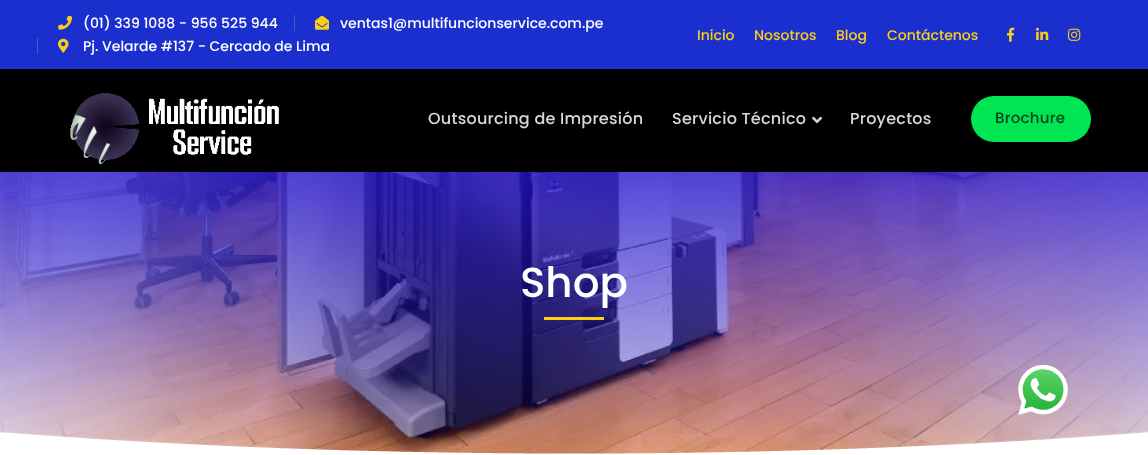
<svg xmlns="http://www.w3.org/2000/svg" width="1148" height="455" viewBox="0 0 1148 455">
  <style>
    .t1 { font: 500 14px Poppins; fill: #fff; }
    .t2 { font: 500 14px Poppins; fill: #fbcf18; }
    .t3 { font: 500 16px Poppins; letter-spacing: 0.25px; fill: #d7d7d7; }
    .t4 { font: 500 15px Poppins; letter-spacing: 0.25px; fill: #03441a; }
    .t5 { font: 500 42px Poppins; fill: #fff; }
  </style>
  <rect width="100%" height="100%" fill="#fff"/>
  <rect x="0" y="0" width="1148" height="69" fill="#1a2fce"/>
  <image x="58" y="15" width="14" height="15" href="images/1.png"/>
  <text x="83" y="28" class="t1">(01) 339 1088 - 956 525 944</text>
  <rect x="294" y="15" width="1" height="16" fill="#4759c8"/>
  <image x="315" y="15" width="14" height="15" href="images/2.png"/>
  <text x="340" y="28" class="t1">ventas1@multifuncionservice.com.pe</text>
  <rect x="37" y="38" width="1" height="16" fill="#4759c8"/>
  <image x="58" y="38" width="11" height="15" href="images/3.png"/>
  <text x="83" y="51" class="t1">Pj. Velarde #137 - Cercado de Lima</text>
  <text x="697" y="40" class="t2">Inicio</text>
  <text x="754" y="40" class="t2">Nosotros</text>
  <text x="836" y="40" class="t2">Blog</text>
  <text x="887" y="40" class="t2">Contáctenos</text>
  <image x="1007" y="27" width="8" height="15" href="images/4.png"/>
  <image x="1036" y="27" width="13" height="13" href="images/5.png"/>
  <image x="1068" y="28" width="13" height="13" href="images/6.png"/>
  <rect x="0" y="69" width="1148" height="103" fill="#000"/>
  <image x="70" y="93" width="209" height="72" href="images/7.png"/>
  <text x="428" y="124" class="t3">Outsourcing de Impresión</text>
  <text x="672" y="124" class="t3">Servicio Técnico</text>
  <image x="812" y="116" width="10" height="8" href="images/8.png"/>
  <text x="850" y="124" class="t3">Proyectos</text>
  <rect x="971" y="96" width="120" height="46" rx="23" fill="#00e552"/>
  <text x="995" y="123" class="t4">Brochure</text>
  <image x="0" y="172" width="1148" height="283" href="images/9.png"/>
  <text x="520" y="297" class="t5">Shop</text>
  <rect x="544" y="317" width="60" height="3" fill="#fbcf18"/>
  <image x="1018" y="365" width="50" height="50" href="images/10.png"/>
</svg>
